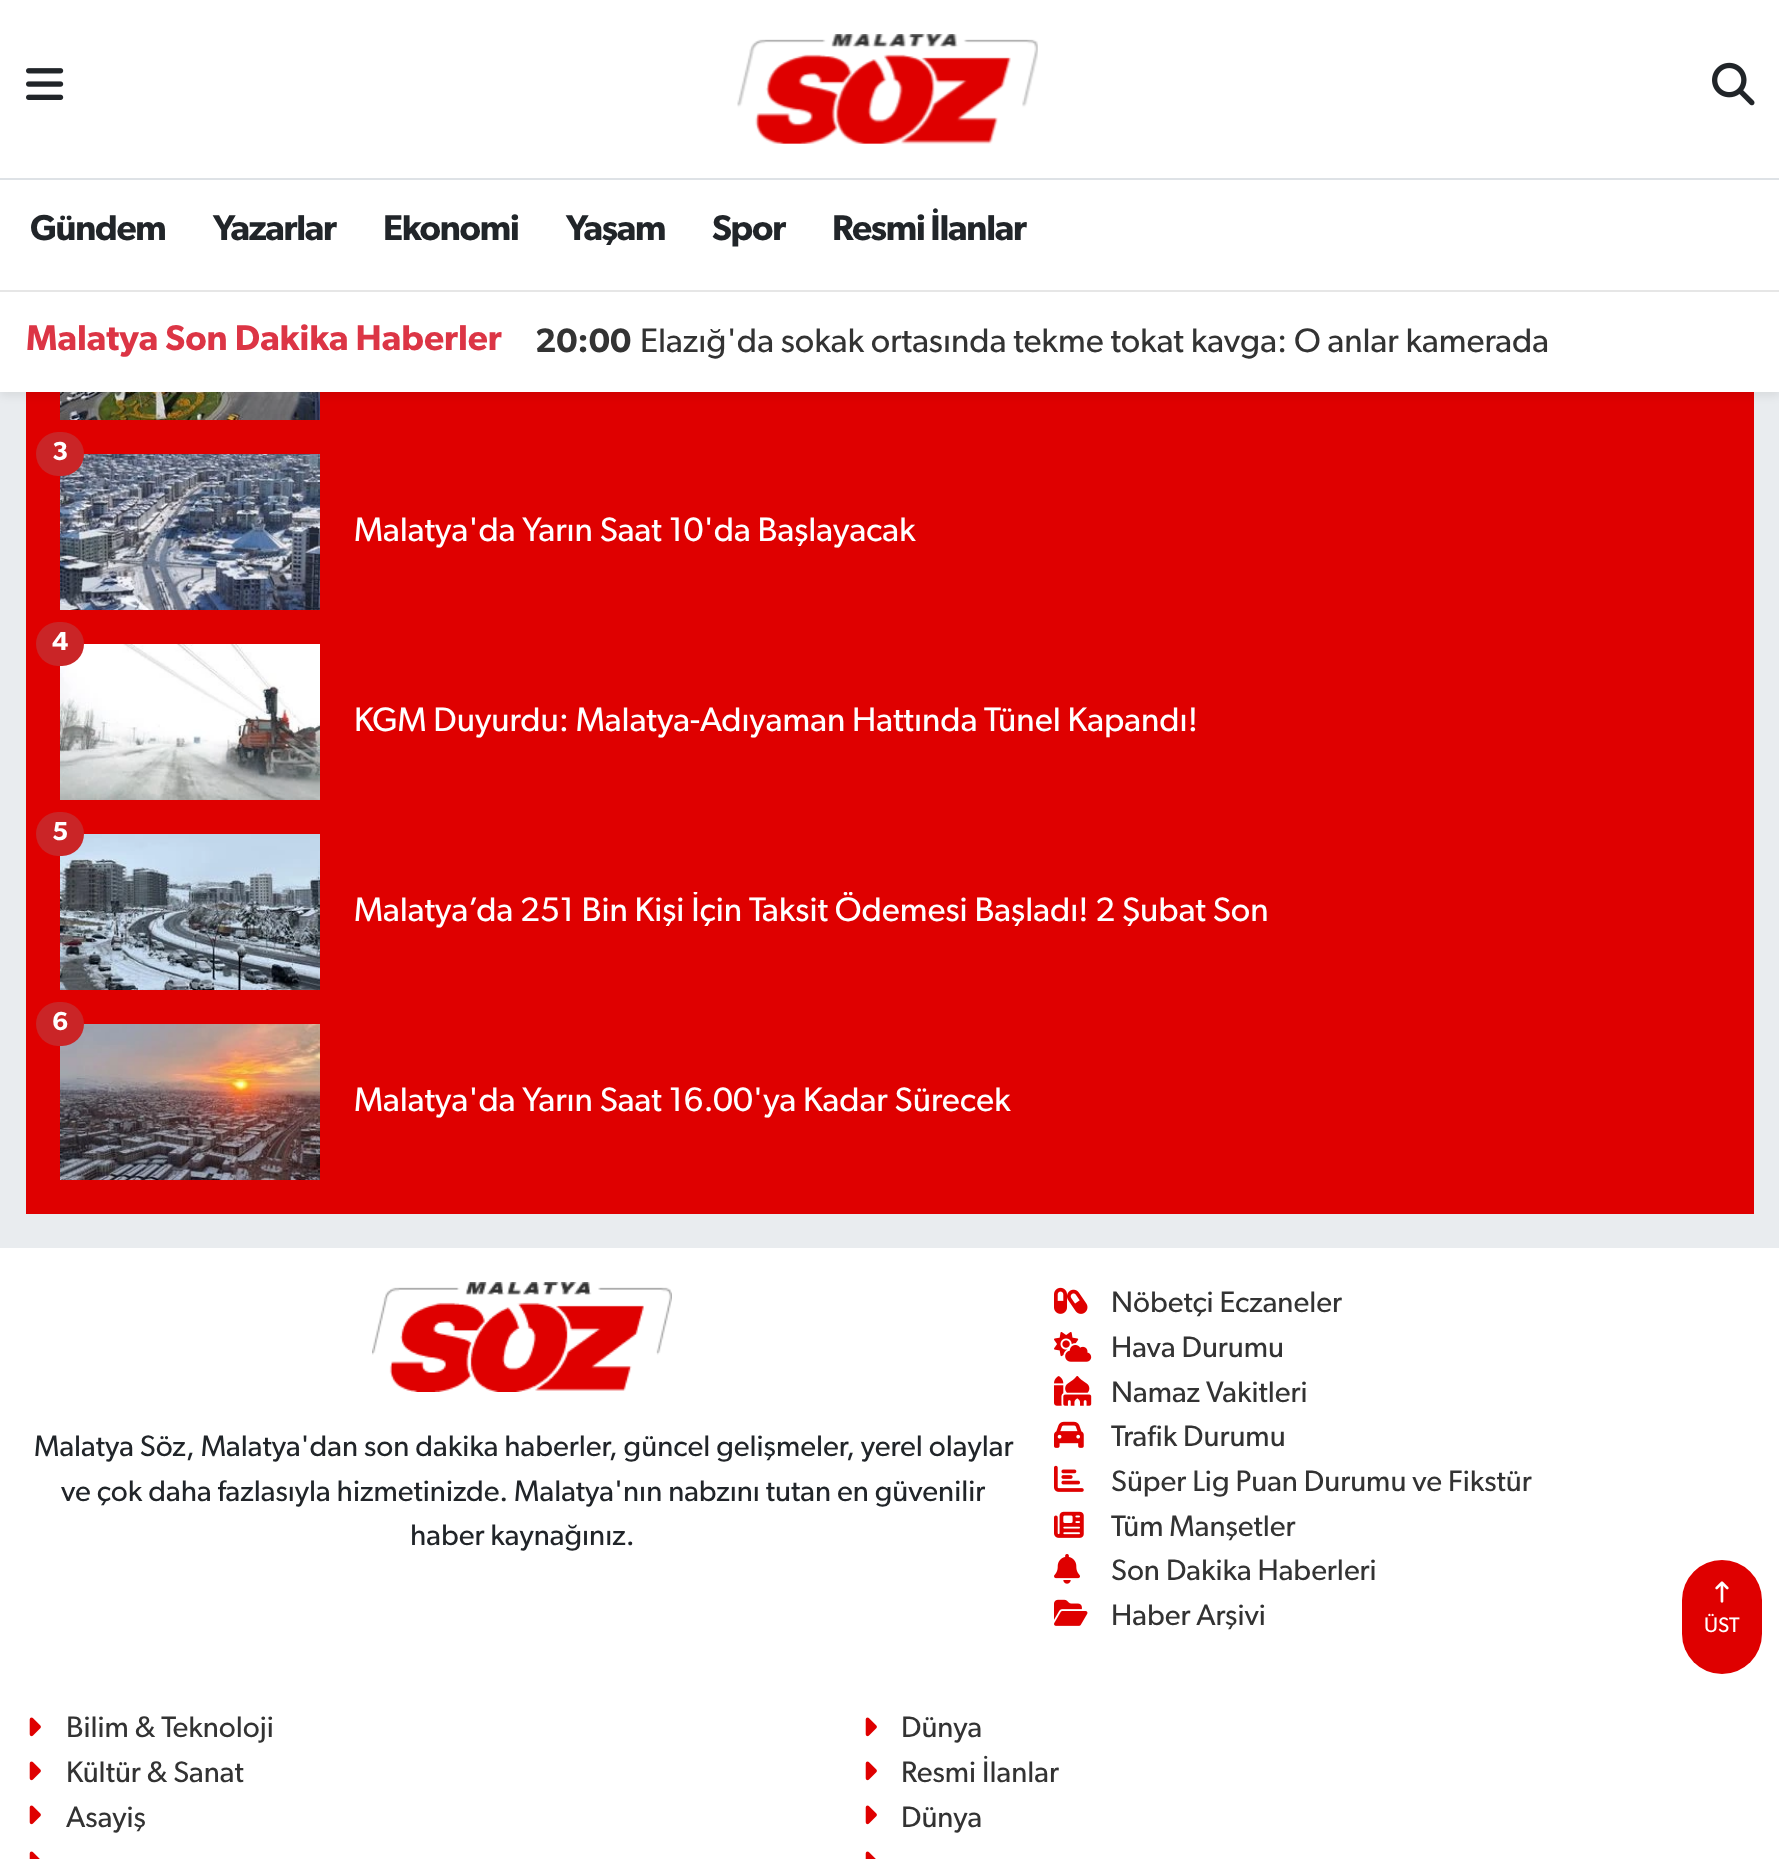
<svg xmlns="http://www.w3.org/2000/svg" width="1779" height="1859" viewBox="0 0 1779 1859">
  <style>
    .t1 { font: 600 36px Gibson; letter-spacing: -1.25px; fill: #212529; }
    .t2 { font: 600 36px Gibson; fill: #dc3545; }
    .t3 { font: 600 34px Gibson; fill: #333; }
    .t4 { font: 34px Gibson; fill: #333; }
    .t5 { font: 600 26px Gibson; fill: #fff; }
    .t6 { font: 34px Gibson; fill: #fff; }
    .t7 { font: 29.75px Gibson; fill: #212529; }
    .t8 { font: 29.75px Gibson; fill: #333; }
    .t9 { font: 21px Gibson; fill: #fff; }
  </style>
  <defs>
    <clipPath id="clip1"><rect x="354" y="892" width="914" height="42"/></clipPath>
  </defs>
  <rect width="100%" height="100%" fill="#e9ecef"/>
  <rect x="0" y="0" width="1779" height="178" fill="#fff"/>
  <rect x="0" y="178" width="1779" height="2" fill="#dee2e6"/>
  <image x="26" y="68" width="38" height="32" href="images/1.png"/>
  <image x="737" y="34" width="301" height="110" href="images/2.png"/>
  <image x="1712" y="62" width="43" height="44" href="images/3.png"/>
  <rect x="26" y="392" width="1728" height="822" fill="#df0000"/>
  <image x="60" y="392" width="260" height="28" href="images/4.png"/>
  <rect x="0" y="296" width="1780" height="100" fill="#00000012" filter="blur(4px)"/>
  <rect x="0" y="180" width="1779" height="110" fill="#fff"/>
  <rect x="0" y="290" width="1779" height="2" fill="#e6e6e6"/>
  <text x="30" y="240" class="t1">Gündem</text>
  <text x="213" y="240" class="t1">Yazarlar</text>
  <text x="383" y="240" class="t1">Ekonomi</text>
  <text x="566" y="240" class="t1">Yaşam</text>
  <text x="712" y="240" class="t1">Spor</text>
  <text x="832" y="240" class="t1">Resmi İlanlar</text>
  <rect x="0" y="292" width="1779" height="100" fill="#fff"/>
  <text x="26" y="350" class="t2">Malatya Son Dakika Haberler</text>
  <text x="535" y="352" class="t3">20:00</text>
  <text x="640" y="352" class="t4">Elazığ'da sokak ortasında tekme tokat kavga: O anlar kamerada</text>
  <image x="60" y="454" width="260" height="156" href="images/5.png"/>
  <rect x="36" y="432" width="48" height="44" rx="22" fill="#ca2527"/>
  <text x="52" y="460" class="t5">3</text>
  <text x="354" y="541" class="t6">Malatya'da Yarın Saat 10'da Başlayacak</text>
  <image x="60" y="644" width="260" height="156" href="images/6.png"/>
  <rect x="36" y="622" width="48" height="44" rx="22" fill="#ca2527"/>
  <text x="52" y="650" class="t5">4</text>
  <text x="354" y="731" class="t6">KGM Duyurdu: Malatya-Adıyaman Hattında Tünel Kapandı!</text>
  <image x="60" y="834" width="260" height="156" href="images/7.png"/>
  <rect x="36" y="812" width="48" height="44" rx="22" fill="#ca2527"/>
  <text x="52" y="840" class="t5">5</text>
  <g clip-path="url(#clip1)">
    <text x="354" y="921" class="t6">Malatya’da 251 Bin Kişi İçin Taksit Ödemesi Başladı! 2 Şubat Son</text>
  </g>
  <image x="60" y="1024" width="260" height="156" href="images/8.png"/>
  <rect x="36" y="1002" width="48" height="44" rx="22" fill="#ca2527"/>
  <text x="52" y="1030" class="t5">6</text>
  <text x="354" y="1111" class="t6">Malatya'da Yarın Saat 16.00'ya Kadar Sürecek</text>
  <rect x="0" y="1248" width="1779" height="611" fill="#fff"/>
  <image x="372" y="1282" width="300" height="110" href="images/9.png"/>
  <text x="34" y="1456" class="t7">Malatya Söz, Malatya'dan son dakika haberler, güncel gelişmeler, yerel olaylar</text>
  <text x="61" y="1501" class="t7">ve çok daha fazlasıyla hizmetinizde. Malatya'nın nabzını tutan en güvenilir</text>
  <text x="410" y="1545" class="t7">haber kaynağınız.</text>
  <image x="1054" y="1287" width="34" height="27" href="images/10.png"/>
  <text x="1111" y="1312" class="t8">Nöbetçi Eczaneler</text>
  <image x="1054" y="1332" width="38" height="30" href="images/11.png"/>
  <text x="1111" y="1357" class="t8">Hava Durumu</text>
  <image x="1054" y="1376" width="38" height="30" href="images/12.png"/>
  <text x="1111" y="1402" class="t8">Namaz Vakitleri</text>
  <image x="1054" y="1421" width="30" height="27" href="images/13.png"/>
  <text x="1111" y="1446" class="t8">Trafik Durumu</text>
  <image x="1054" y="1465" width="30" height="27" href="images/14.png"/>
  <text x="1111" y="1491" class="t8">Süper Lig Puan Durumu ve Fikstür</text>
  <image x="1054" y="1511" width="30" height="27" href="images/15.png"/>
  <text x="1111" y="1536" class="t8">Tüm Manşetler</text>
  <image x="1054" y="1554" width="26" height="30" href="images/16.png"/>
  <text x="1111" y="1580" class="t8">Son Dakika Haberleri</text>
  <image x="1054" y="1599" width="34" height="27" href="images/17.png"/>
  <text x="1111" y="1625" class="t8">Haber Arşivi</text>
  <image x="29" y="1717" width="12" height="20" href="images/18.png"/>
  <text x="66" y="1737" class="t8">Bilim &amp; Teknoloji</text>
  <image x="865" y="1717" width="12" height="20" href="images/18.png"/>
  <text x="901" y="1737" class="t8">Dünya</text>
  <image x="29" y="1761" width="12" height="20" href="images/18.png"/>
  <text x="66" y="1782" class="t8">Kültür &amp; Sanat</text>
  <image x="865" y="1761" width="12" height="20" href="images/18.png"/>
  <text x="901" y="1782" class="t8">Resmi İlanlar</text>
  <image x="29" y="1805" width="12" height="20" href="images/18.png"/>
  <text x="66" y="1827" class="t8">Asayiş</text>
  <image x="865" y="1805" width="12" height="20" href="images/18.png"/>
  <text x="901" y="1827" class="t8">Dünya</text>
  <image x="29" y="1851" width="11" height="8" href="images/19.png"/>
  <image x="865" y="1851" width="11" height="8" href="images/19.png"/>
  <rect x="1682" y="1560" width="80" height="114" rx="40" fill="#df0000"/>
  <image x="1715" y="1581" width="14" height="22" href="images/20.png"/>
  <text x="1704" y="1632" class="t9">ÜST</text>
</svg>
